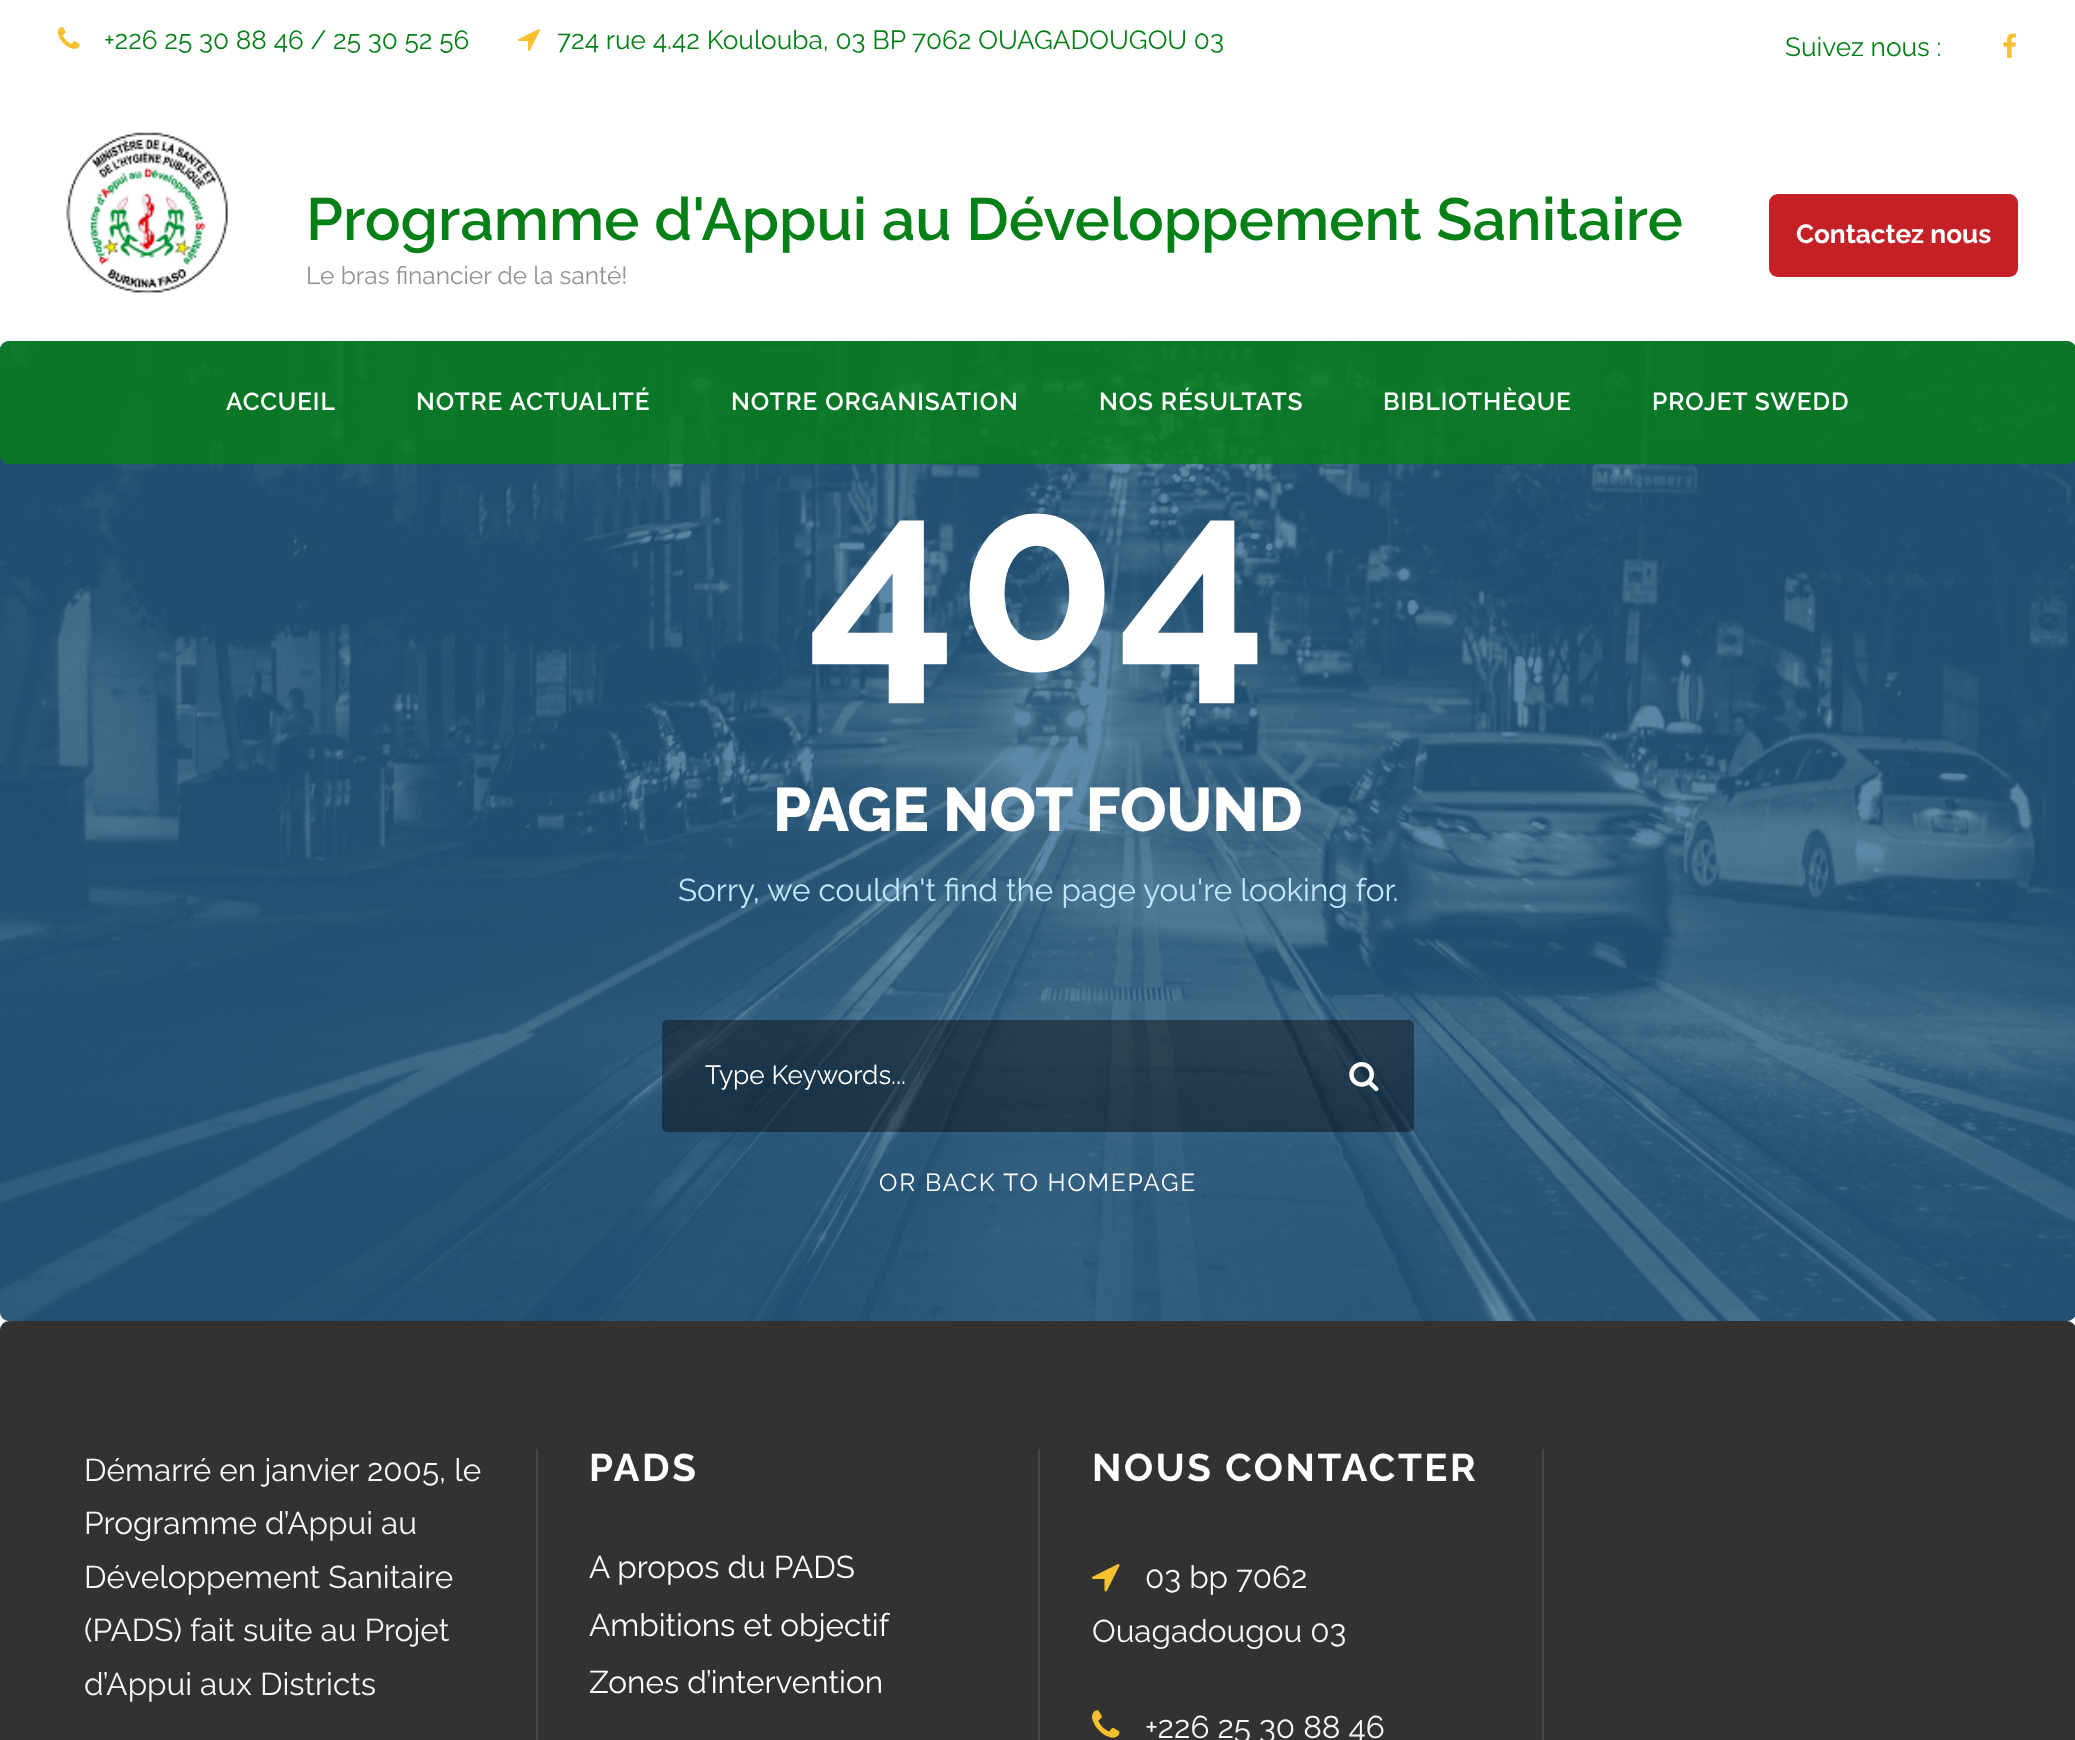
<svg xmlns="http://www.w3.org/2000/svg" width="2075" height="1740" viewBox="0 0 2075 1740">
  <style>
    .t1 { font: 26.25px Raleway; fill: #058017; }
    .t2 { font: 600 59.5px Raleway; fill: #058017; }
    .t3 { font: 24.5px Raleway; fill: #929292; }
    .t4 { font: bold 26.25px Raleway; fill: #fff; }
    .t5 { font: 600 24.5px Raleway; letter-spacing: 0.9px; fill: #fff; }
    .t6 { font: bold 262px Raleway; fill: #fff; }
    .t7 { font: 800 61.25px Raleway; fill: #fff; }
    .t8 { font: 31.5px Raleway; fill: #c3e7ff; }
    .t9 { font: 26.25px Raleway; fill: #fff; }
    .t10 { font: 24.5px Raleway; letter-spacing: 1.75px; fill: #fff; }
    .t11 { font: 31.5px Raleway; fill: #f7f7f7; }
    .t12 { font: bold 38.5px Raleway; letter-spacing: 2.6px; fill: #fff; }
    .t13 { font: 31.5px Raleway; fill: #fff; }
  </style>
  <rect width="100%" height="100%" fill="#fff"/>
  <image x="57" y="27" width="23" height="22" href="images/1.png"/>
  <text x="104" y="49" class="t1">+226 25 30 88 46 / 25 30 52 56</text>
  <image x="518" y="29" width="22" height="22" href="images/2.png"/>
  <text x="557" y="49" class="t1">724 rue 4.42 Koulouba, 03 BP 7062 OUAGADOUGOU 03</text>
  <text x="1785" y="56" class="t1">Suivez nous :</text>
  <image x="2003" y="33" width="14" height="25" href="images/3.png"/>
  <image x="66" y="132" width="162" height="162" href="images/4.png"/>
  <text x="306" y="240" class="t2">Programme d'Appui au Développement Sanitaire</text>
  <text x="306" y="284" class="t3">Le bras financier de la santé!</text>
  <path d="M1778 194H2009C2014 194 2018 198 2018 203V268C2018 273 2014 277 2009 277H1778C1773 277 1769 273 1769 268V203C1769 198 1773 194 1778 194Z" fill="#c52026"/>
  <text x="1796" y="243" class="t4">Contactez nous</text>
  <rect x="0" y="341" width="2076" height="980" rx="9" fill="#23618e"/>
  <image x="0" y="341" width="2075" height="980" href="images/5.png"/>
  <rect x="0" y="341" width="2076" height="123" rx="9" fill="#058017d1"/>
  <text x="226" y="410" class="t5">ACCUEIL</text>
  <text x="416" y="410" class="t5">NOTRE ACTUALITÉ</text>
  <text x="731" y="410" class="t5">NOTRE ORGANISATION</text>
  <text x="1099" y="410" class="t5">NOS RÉSULTATS</text>
  <text x="1383" y="410" class="t5">BIBLIOTHÈQUE</text>
  <text x="1652" y="410" class="t5">PROJET SWEDD</text>
  <text x="807" y="670" class="t6">404</text>
  <text x="773" y="831" class="t7">PAGE NOT FOUND</text>
  <text x="678" y="901" class="t8">Sorry, we couldn't find the page you're looking for.</text>
  <rect x="662" y="1020" width="752" height="112" rx="5" fill="#00000066"/>
  <text x="705" y="1084" class="t9">Type Keywords...</text>
  <image x="1349" y="1062" width="30" height="30" href="images/6.png"/>
  <text x="879" y="1191" class="t10">OR BACK TO HOMEPAGE</text>
  <rect x="0" y="1321" width="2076" height="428" rx="9" fill="#323232"/>
  <text x="84" y="1481" class="t11">Démarré en janvier 2005, le</text>
  <text x="84" y="1534" class="t11">Programme d’Appui au</text>
  <text x="84" y="1588" class="t11">Développement Sanitaire</text>
  <text x="84" y="1641" class="t11">(PADS) fait suite au Projet</text>
  <text x="84" y="1695" class="t11">d’Appui aux Districts</text>
  <rect x="536" y="1449" width="2" height="291" fill="#474747"/>
  <text x="589" y="1481" class="t12">PADS</text>
  <text x="589" y="1578" class="t13">A propos du PADS</text>
  <text x="589" y="1636" class="t13">Ambitions et objectif</text>
  <text x="589" y="1693" class="t13">Zones d’intervention</text>
  <rect x="1038" y="1449" width="2" height="291" fill="#474747"/>
  <text x="1092" y="1481" class="t12">NOUS CONTACTER</text>
  <image x="1092" y="1564" width="28" height="28" href="images/7.png"/>
  <text x="1145" y="1588" class="t11">03 bp 7062</text>
  <text x="1092" y="1642" class="t11">Ouagadougou 03</text>
  <image x="1092" y="1710" width="28" height="28" href="images/8.png"/>
  <text x="1145" y="1738" class="t11">+226 25 30 88 46</text>
  <rect x="1542" y="1449" width="2" height="291" fill="#474747"/>
</svg>
